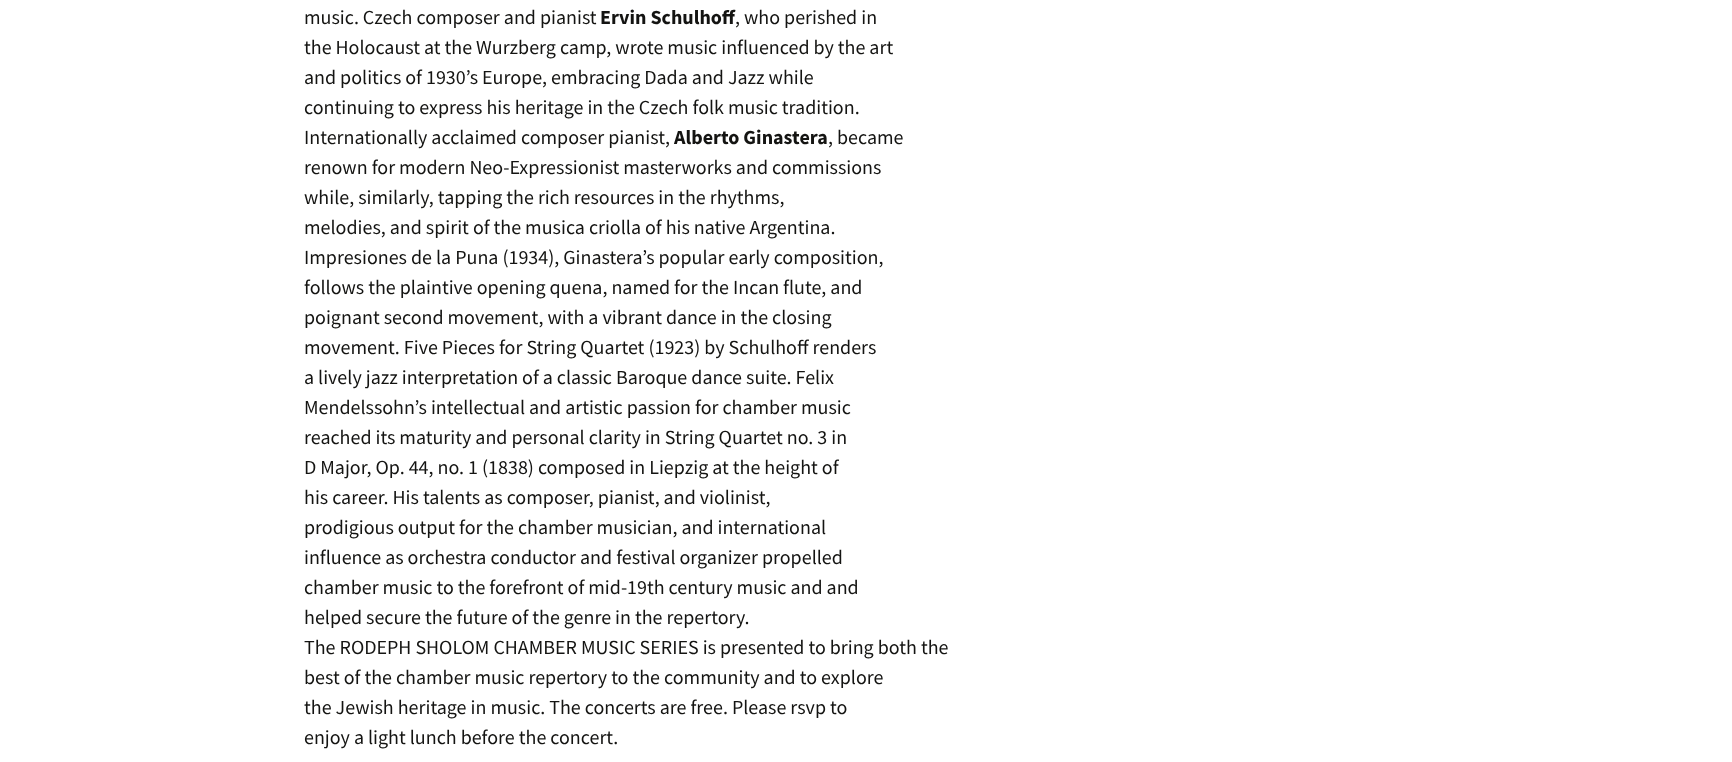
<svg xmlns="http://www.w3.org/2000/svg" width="1732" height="762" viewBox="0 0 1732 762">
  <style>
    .t1 { font: 20px Source Sans Pro; fill: #141412; }
    .t2 { font: bold 20px Source Sans Pro; fill: #141412; }
  </style>
  <rect width="100%" height="100%" fill="#fff"/>
  <text x="304" y="24" class="t1">music. Czech composer and pianist</text>
  <text x="600" y="24" class="t2">Ervin Schulhoff</text>
  <text x="735" y="24" class="t1">, who perished in</text>
  <text x="304" y="54" class="t1">the Holocaust at the Wurzberg camp, wrote music influenced by the art</text>
  <text x="304" y="84" class="t1">and politics of 1930’s Europe, embracing Dada and Jazz while</text>
  <text x="304" y="114" class="t1">continuing to express his heritage in the Czech folk music tradition.</text>
  <text x="304" y="144" class="t1">Internationally acclaimed composer pianist,</text>
  <text x="674" y="144" class="t2">Alberto Ginastera</text>
  <text x="828" y="144" class="t1">, became</text>
  <text x="304" y="174" class="t1">renown for modern Neo-Expressionist masterworks and commissions</text>
  <text x="304" y="204" class="t1">while, similarly, tapping the rich resources in the rhythms,</text>
  <text x="304" y="234" class="t1">melodies, and spirit of the musica criolla of his native Argentina.</text>
  <text x="304" y="264" class="t1">Impresiones de la Puna (1934), Ginastera’s popular early composition,</text>
  <text x="304" y="294" class="t1">follows the plaintive opening quena, named for the Incan flute, and</text>
  <text x="304" y="324" class="t1">poignant second movement, with a vibrant dance in the closing</text>
  <text x="304" y="354" class="t1">movement. Five Pieces for String Quartet (1923) by Schulhoff renders</text>
  <text x="304" y="384" class="t1">a lively jazz interpretation of a classic Baroque dance suite. Felix</text>
  <text x="304" y="414" class="t1">Mendelssohn’s intellectual and artistic passion for chamber music</text>
  <text x="304" y="444" class="t1">reached its maturity and personal clarity in String Quartet no. 3 in</text>
  <text x="304" y="474" class="t1">D Major, Op. 44, no. 1 (1838) composed in Liepzig at the height of</text>
  <text x="304" y="504" class="t1">his career. His talents as composer, pianist, and violinist,</text>
  <text x="304" y="534" class="t1">prodigious output for the chamber musician, and international</text>
  <text x="304" y="564" class="t1">influence as orchestra conductor and festival organizer propelled</text>
  <text x="304" y="594" class="t1">chamber music to the forefront of mid-19th century music and and</text>
  <text x="304" y="624" class="t1">helped secure the future of the genre in the repertory.</text>
  <text x="304" y="654" class="t1">The RODEPH SHOLOM CHAMBER MUSIC SERIES is presented to bring both the</text>
  <text x="304" y="684" class="t1">best of the chamber music repertory to the community and to explore</text>
  <text x="304" y="714" class="t1">the Jewish heritage in music. The concerts are free. Please rsvp to</text>
  <text x="304" y="744" class="t1">enjoy a light lunch before the concert.</text>
</svg>
